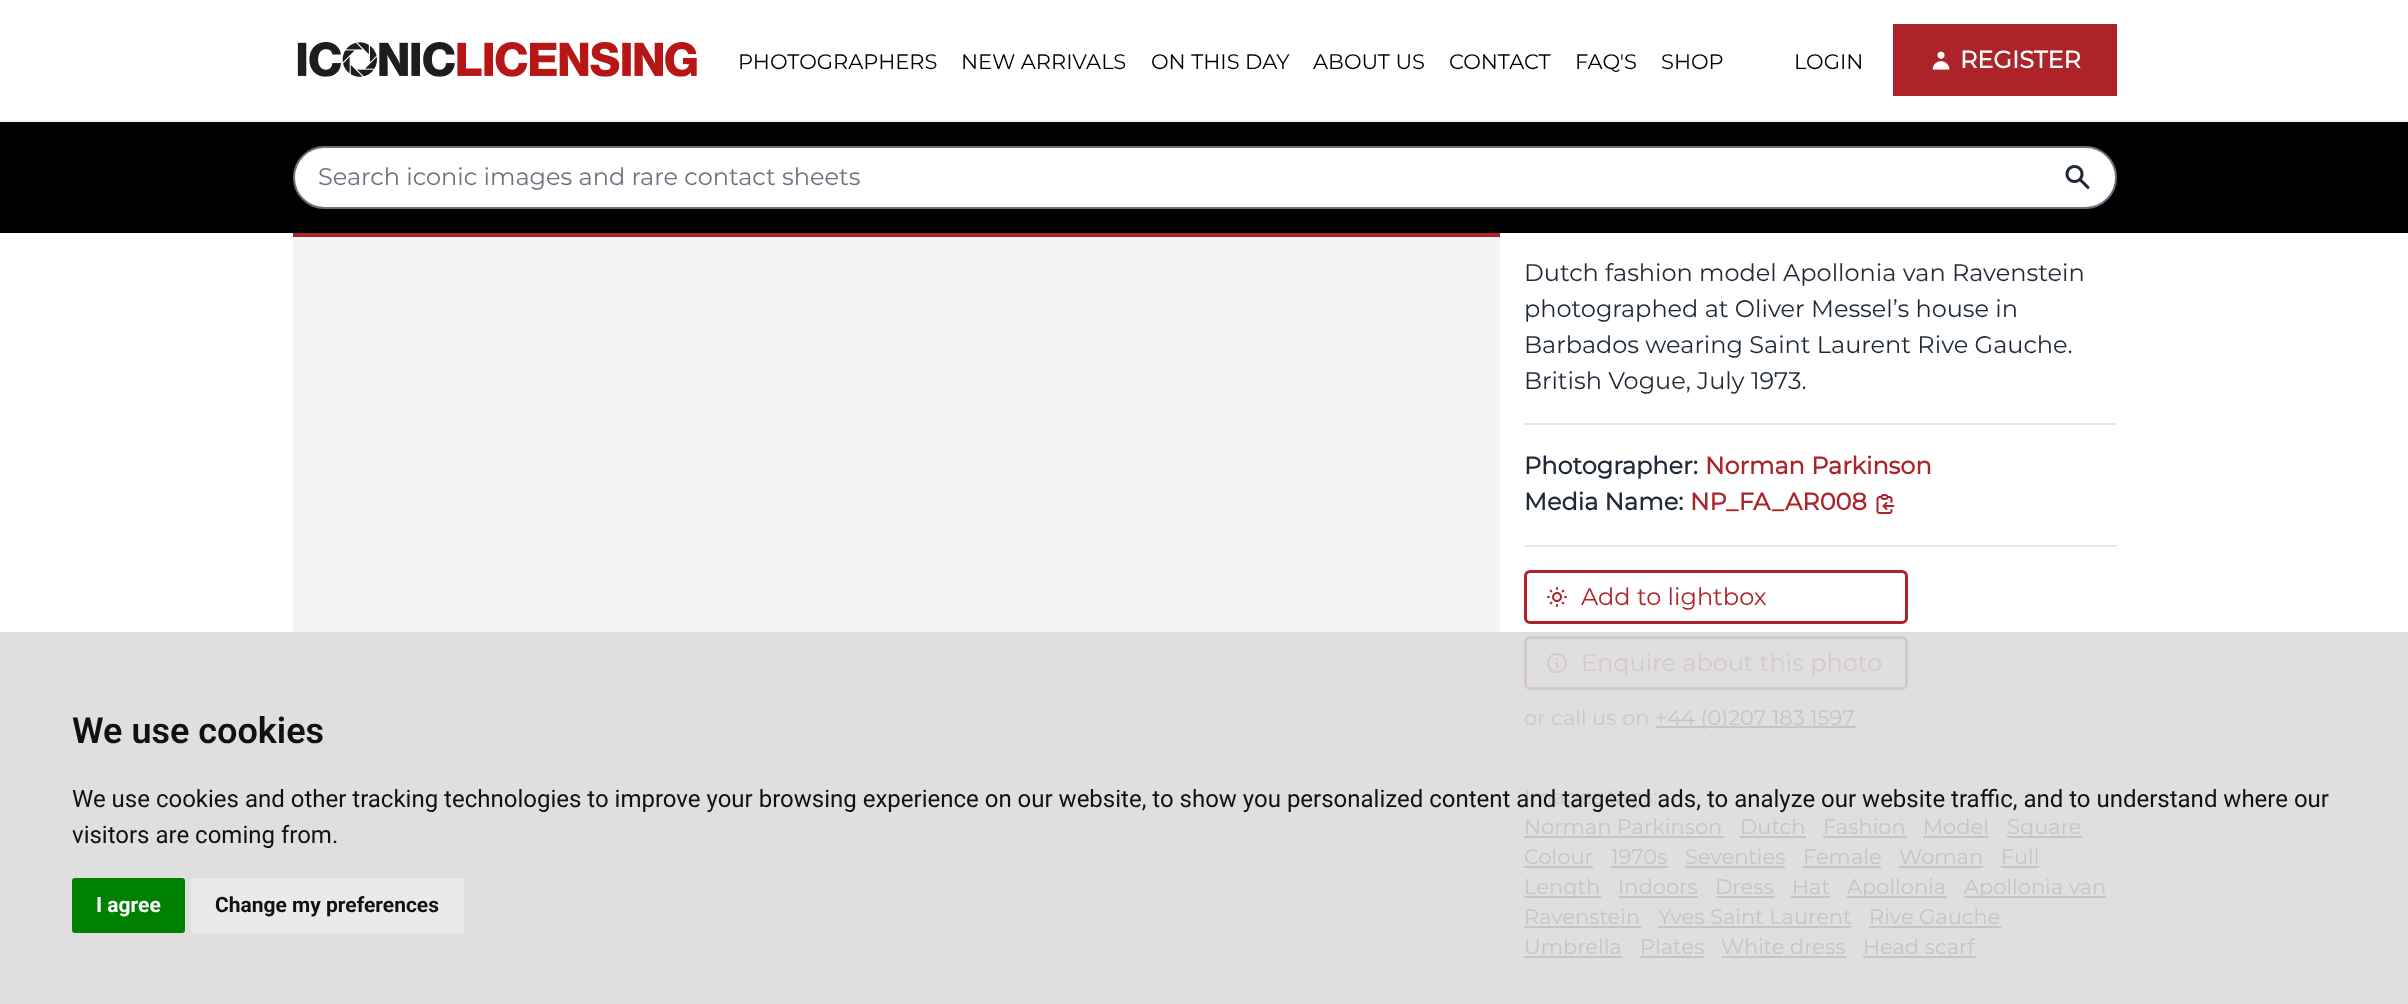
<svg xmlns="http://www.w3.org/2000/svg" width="2408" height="1004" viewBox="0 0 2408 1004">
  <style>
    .t1 { font: 100 21px Montserrat; fill: #000; }
    .t2 { font: bold 24px Montserrat; fill: #fff; }
    .t3 { font: 100 24px Montserrat; fill: #6b7280; }
    .t4 { font: 100 24px Montserrat; fill: #1f2937; }
    .t5 { font: bold 24px Montserrat; fill: #1f2937; }
    .t6 { font: bold 24px Montserrat; fill: #ac232a; }
    .t7 { font: 100 24px Montserrat; fill: #ac232a; }
    .t8 { font: 100 24px Montserrat; fill: #d6c9c9; }
    .t9 { font: 100 21px Montserrat; fill: #c8c9cb; }
    .t10 { font: 100 21px Montserrat; fill: #c5c5c5; }
    .t11 { font: 600 36px Roboto; fill: #111; }
    .t12 { font: 24px Roboto; fill: #111; }
    .t13 { font: bold 21px Roboto; fill: #fff; }
    .t14 { font: bold 21px Roboto; fill: #111; }
  </style>
  <rect width="100%" height="100%" fill="#fff"/>
  <rect x="0" y="632" width="2408" height="372" fill="#dfdfdf"/>
  <rect x="0" y="120" width="2408" height="2" fill="#f3f4f6"/>
  <image x="297" y="42" width="400" height="35" href="images/1.png"/>
  <text x="738" y="69" class="t1">PHOTOGRAPHERS</text>
  <text x="961" y="69" class="t1">NEW ARRIVALS</text>
  <text x="1151" y="69" class="t1">ON THIS DAY</text>
  <text x="1313" y="69" class="t1">ABOUT US</text>
  <text x="1449" y="69" class="t1">CONTACT</text>
  <text x="1575" y="69" class="t1">FAQ'S</text>
  <text x="1661" y="69" class="t1">SHOP</text>
  <text x="1794" y="69" class="t1">LOGIN</text>
  <rect x="1893" y="24" width="224" height="72" fill="#ac232a"/>
  <image x="1932" y="51" width="18" height="19" href="images/2.png"/>
  <text x="1960" y="68" class="t2">REGISTER</text>
  <rect x="0" y="122" width="2408" height="111" fill="#000"/>
  <rect x="294" y="147" width="1822" height="61" rx="30.5" fill="#fff" stroke="#6b7280" stroke-width="2"/>
  <text x="318" y="185" class="t3">Search iconic images and rare contact sheets</text>
  <image x="2065" y="165" width="25" height="24" href="images/3.png"/>
  <rect x="293" y="233" width="1207" height="4" fill="#ac232a"/>
  <rect x="293" y="237" width="1207" height="395" fill="#f3f4f6"/>
  <rect x="1524" y="423" width="593" height="2" fill="#e5e7eb"/>
  <text x="1524" y="281" class="t4">Dutch fashion model Apollonia van Ravenstein</text>
  <text x="1524" y="317" class="t4">photographed at Oliver Messel’s house in</text>
  <text x="1524" y="353" class="t4">Barbados wearing Saint Laurent Rive Gauche.</text>
  <text x="1524" y="389" class="t4">British Vogue, July 1973.</text>
  <rect x="1524" y="545" width="593" height="2" fill="#e5e7eb"/>
  <text x="1524" y="474" class="t5">Photographer:</text>
  <text x="1705" y="474" class="t6">Norman Parkinson</text>
  <text x="1524" y="510" class="t5">Media Name:</text>
  <text x="1690" y="510" class="t6">NP_FA_AR008</text>
  <image x="1876" y="494" width="19" height="20" href="images/4.png"/>
  <rect x="1524" y="756" width="593" height="2" fill="#dcdcdd"/>
  <rect x="1525.5" y="571.5" width="381" height="51" rx="4.5" fill="none" stroke="#ac232a" stroke-width="3"/>
  <image x="1547" y="587" width="20" height="20" href="images/5.png"/>
  <text x="1581" y="605" class="t7">Add to lightbox</text>
  <rect x="1525.5" y="637.5" width="381" height="51" rx="4.5" fill="none" stroke="#d6c9c9" stroke-width="3"/>
  <image x="1547" y="653" width="20" height="20" href="images/6.png"/>
  <text x="1581" y="671" class="t8">Enquire about this photo</text>
  <text x="1524" y="725" class="t9">or call us on</text>
  <rect x="1656" y="726" width="200" height="2" fill="#c5c5c5"/>
  <text x="1655" y="725" class="t10">+44 (0)207 183 1597</text>
  <text x="1524" y="804" class="t9">Images tags:</text>
  <text x="1524" y="834" class="t10">Norman Parkinson</text>
  <rect x="1524" y="836" width="200" height="2" fill="#c5c5c5"/>
  <text x="1740" y="834" class="t10">Dutch</text>
  <rect x="1740" y="836" width="66" height="2" fill="#c5c5c5"/>
  <text x="1823" y="834" class="t10">Fashion</text>
  <rect x="1823" y="836" width="84" height="2" fill="#c5c5c5"/>
  <text x="1923" y="834" class="t10">Model</text>
  <rect x="1923" y="836" width="66" height="2" fill="#c5c5c5"/>
  <rect x="2007" y="836" width="75" height="2" fill="#c5c5c5"/>
  <text x="2007" y="834" class="t10">Square</text>
  <text x="1524" y="864" class="t10">Colour</text>
  <rect x="1524" y="866" width="69" height="2" fill="#c5c5c5"/>
  <text x="1611" y="864" class="t10">1970s</text>
  <rect x="1611" y="866" width="57" height="2" fill="#c5c5c5"/>
  <text x="1685" y="864" class="t10">Seventies</text>
  <rect x="1685" y="866" width="100" height="2" fill="#c5c5c5"/>
  <text x="1803" y="864" class="t10">Female</text>
  <rect x="1803" y="866" width="78" height="2" fill="#c5c5c5"/>
  <text x="1899" y="864" class="t10">Woman</text>
  <rect x="1899" y="866" width="84" height="2" fill="#c5c5c5"/>
  <text x="2001" y="864" class="t10">Full</text>
  <rect x="2001" y="866" width="38" height="2" fill="#c5c5c5"/>
  <rect x="1524" y="896" width="77" height="2" fill="#c5c5c5"/>
  <text x="1524" y="894" class="t10">Length</text>
  <text x="1618" y="894" class="t10">Indoors</text>
  <rect x="1619" y="896" width="79" height="2" fill="#c5c5c5"/>
  <text x="1715" y="894" class="t10">Dress</text>
  <rect x="1716" y="896" width="59" height="2" fill="#c5c5c5"/>
  <text x="1792" y="894" class="t10">Hat</text>
  <rect x="1791" y="896" width="39" height="2" fill="#c5c5c5"/>
  <rect x="1847" y="896" width="100" height="2" fill="#c5c5c5"/>
  <text x="1847" y="894" class="t10">Apollonia</text>
  <rect x="1964" y="896" width="142" height="2" fill="#c5c5c5"/>
  <text x="1964" y="894" class="t10">Apollonia van</text>
  <text x="1524" y="924" class="t10">Ravenstein</text>
  <rect x="1524" y="926" width="117" height="2" fill="#c5c5c5"/>
  <text x="1658" y="924" class="t10">Yves Saint Laurent</text>
  <rect x="1658" y="926" width="193" height="2" fill="#c5c5c5"/>
  <text x="1869" y="924" class="t10">Rive Gauche</text>
  <rect x="1869" y="926" width="132" height="2" fill="#c5c5c5"/>
  <text x="1524" y="954" class="t10">Umbrella</text>
  <rect x="1524" y="956" width="98" height="2" fill="#c5c5c5"/>
  <text x="1640" y="954" class="t10">Plates</text>
  <rect x="1640" y="956" width="64" height="2" fill="#c5c5c5"/>
  <text x="1721" y="954" class="t10">White dress</text>
  <rect x="1722" y="956" width="125" height="2" fill="#c5c5c5"/>
  <text x="1863" y="954" class="t10">Head scarf</text>
  <rect x="1863" y="956" width="113" height="2" fill="#c5c5c5"/>
  <text x="72" y="743" class="t11">We use cookies</text>
  <text x="72" y="807" class="t12">We use cookies and other tracking technologies to improve your browsing experience on our website, to show you personalized content and targeted ads, to analyze our website traffic, and to understand where our</text>
  <text x="72" y="843" class="t12">visitors are coming from.</text>
  <rect x="72" y="878" width="113" height="55" rx="3" fill="#008000"/>
  <text x="96" y="912" class="t13">I agree</text>
  <rect x="191" y="878" width="273" height="55" rx="3" fill="#eaeaea"/>
  <text x="215" y="912" class="t14">Change my preferences</text>
</svg>
